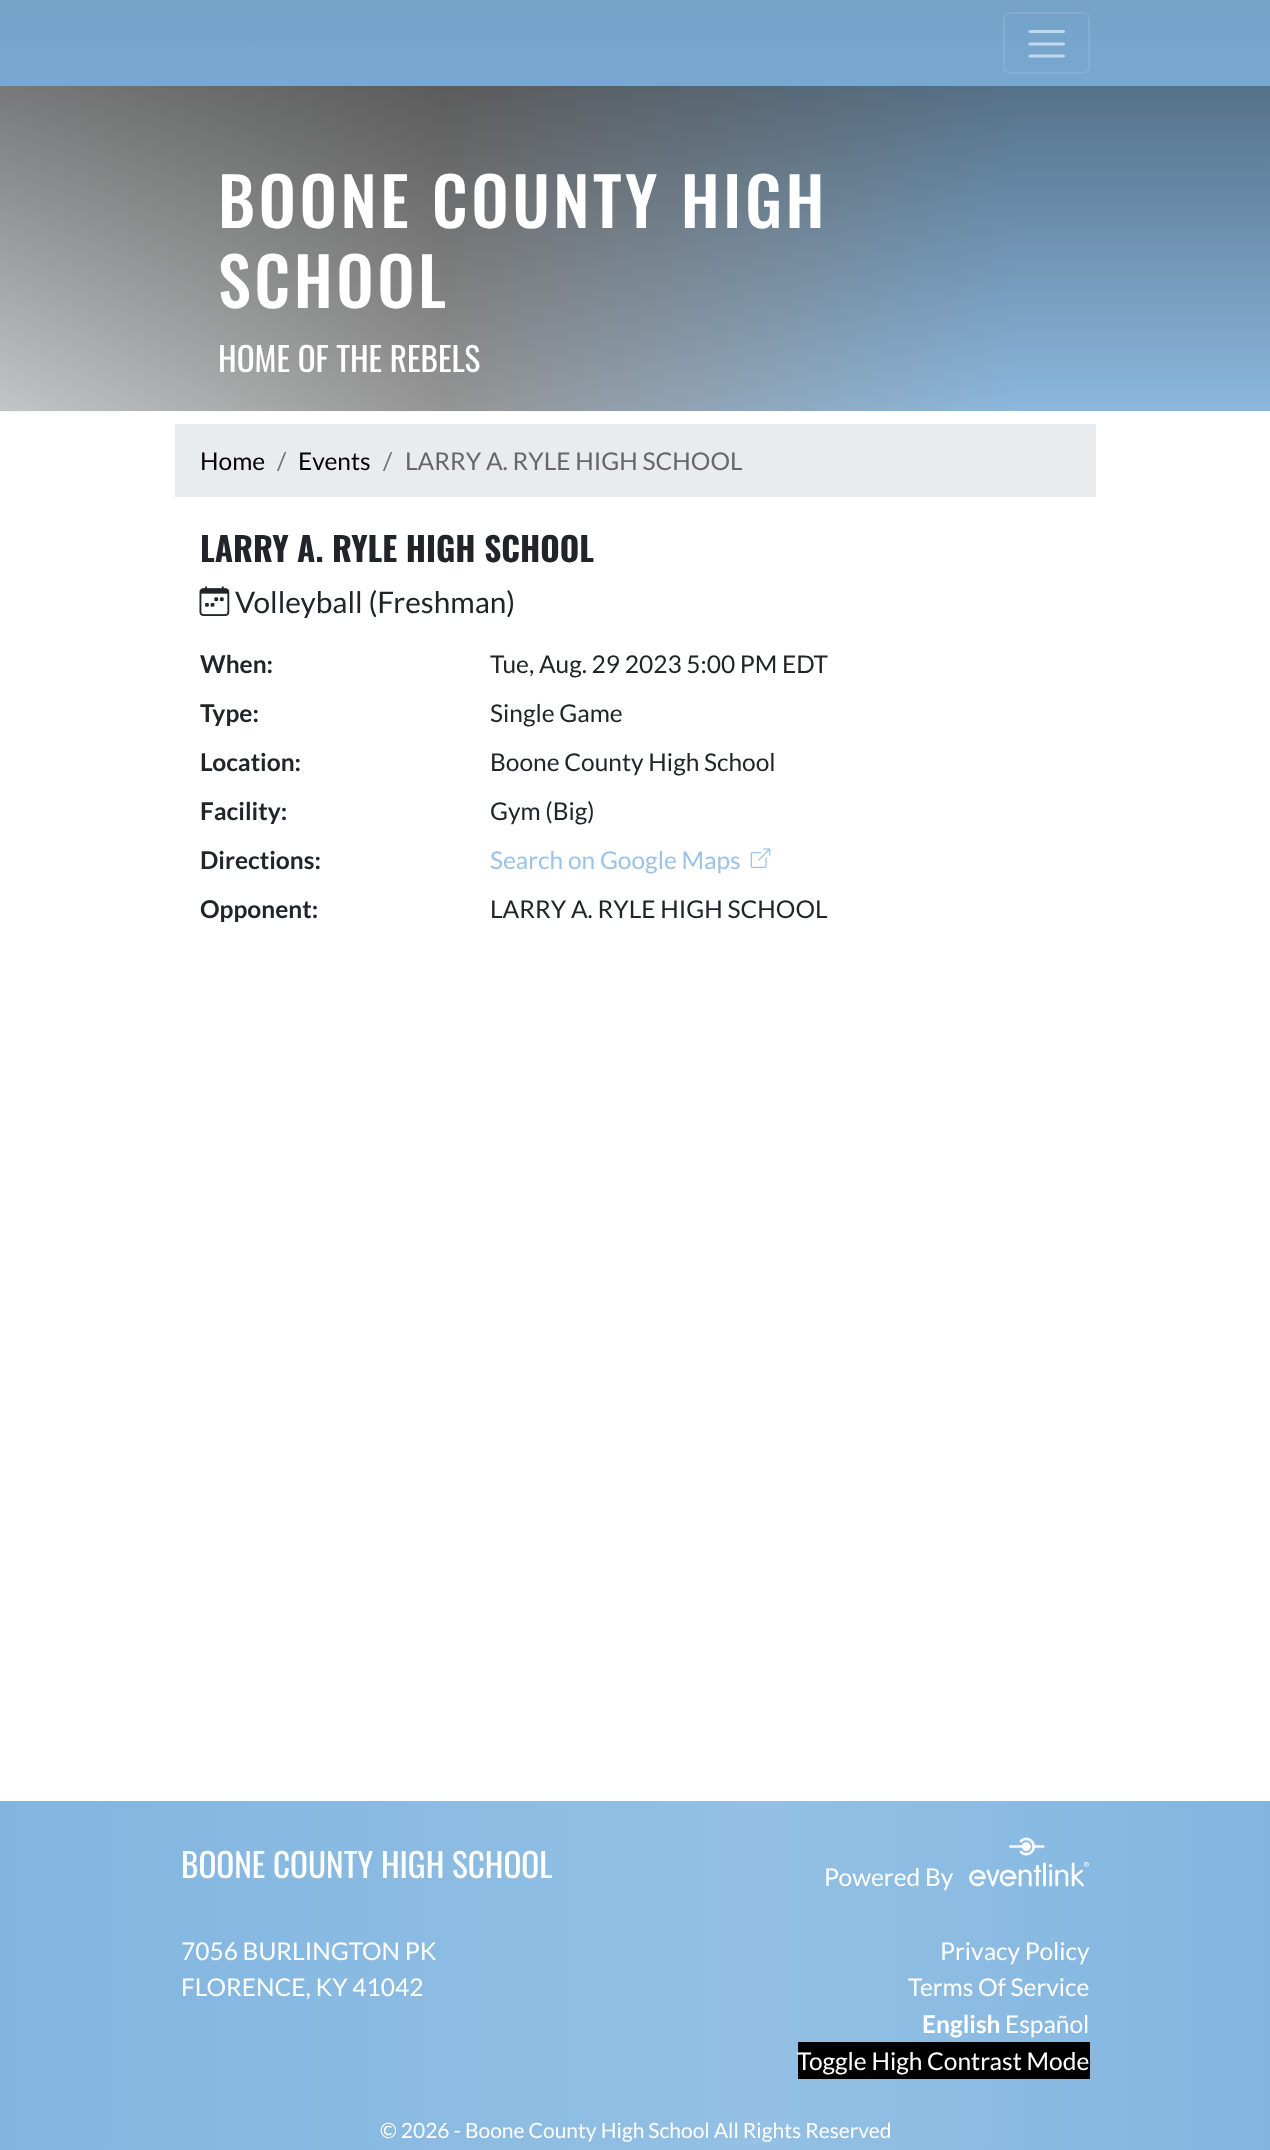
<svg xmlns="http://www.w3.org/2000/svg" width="1270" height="2150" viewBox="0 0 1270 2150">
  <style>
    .t1 { font: 500 66.5px Oswald; letter-spacing: 3.5px; fill: #fff; }
    .t2 { font: 33.25px Oswald; fill: #fff; }
    .t3 { font: 24.5px Lato; fill: #000; }
    .t4 { font: 24.5px Lato; fill: #6c757d; }
    .t5 { font: 24.5px Lato; fill: #676767; }
    .t6 { font: bold 33.25px Oswald; fill: #212529; }
    .t7 { font: 29.75px Lato; fill: #212529; }
    .t8 { font: bold 24.5px Lato; fill: #212529; }
    .t9 { font: 24.5px Lato; fill: #212529; }
    .t10 { font: 24.5px Lato; fill: #9ac3e6; }
    .t11 { font: 24.5px Lato; fill: #fff; }
    .t12 { font: bold 24.5px Lato; fill: #fff; }
    .t13 { font: 21px Lato; fill: #fff; }
  </style>
  <defs>
    <linearGradient id="g1" gradientUnits="userSpaceOnUse" x1="635" y1="0" x2="635" y2="1225"><stop offset="0" stop-color="#74a2c9"/><stop offset="0.21" stop-color="#81b5e0"/><stop offset="1" stop-color="#93c0e4"/><stop offset="1" stop-color="#81b5e0"/></linearGradient>
    <linearGradient id="g2" gradientUnits="userSpaceOnUse" x1="0" y1="249" x2="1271" y2="248"><stop offset="0" stop-color="#c7c9ca"/><stop offset="0.35" stop-color="#989898"/><stop offset="0.8" stop-color="#8ebce3"/></linearGradient>
    <linearGradient id="g3" gradientUnits="userSpaceOnUse" x1="635" y1="86" x2="635" y2="431"><stop offset="0" stop-color="#000" stop-opacity="0.4"/><stop offset="1" stop-color="#000" stop-opacity="0"/></linearGradient>
    <linearGradient id="g4" gradientUnits="userSpaceOnUse" x1="0" y1="1976" x2="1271" y2="1976"><stop offset="0" stop-color="#81b5e0"/><stop offset="0.6" stop-color="#93c0e4"/><stop offset="1" stop-color="#81b5e0"/></linearGradient>
  </defs>
  <rect width="100%" height="100%" fill="#fff"/>
  <rect x="0" y="0" width="1270" height="86" fill="url(#g1)"/>
  <rect x="1004" y="13" width="85" height="60" rx="6" fill="none" stroke="#ffffff1a" stroke-width="2"/>
  <path d="M1030 31.5H1063.5M1030 44H1063.5M1030 56H1063.5" fill="none" stroke="#c2d7e9" stroke-width="3.1" stroke-linecap="round"/>
  <rect x="0" y="86" width="1270" height="325" fill="url(#g2)"/>
  <rect x="0" y="86" width="1270" height="326" fill="url(#g3)"/>
  <text x="218" y="228" class="t1">BOONE COUNTY HIGH</text>
  <text x="218" y="308" class="t1">SCHOOL</text>
  <text x="218" y="372" class="t2">HOME OF THE REBELS</text>
  <rect x="175" y="424" width="921" height="73" fill="#e9ecef"/>
  <text x="200" y="470" class="t3">Home</text>
  <text x="277" y="470" class="t4">/</text>
  <text x="298" y="470" class="t3">Events</text>
  <text x="383" y="470" class="t4">/</text>
  <text x="405" y="470" class="t5">LARRY A. RYLE HIGH SCHOOL</text>
  <text x="200" y="562" class="t6">LARRY A. RYLE HIGH SCHOOL</text>
  <image x="199" y="586" width="31" height="30" href="images/1.png"/>
  <text x="235" y="613" class="t7">Volleyball (Freshman)</text>
  <text x="200" y="673" class="t8">When:</text>
  <text x="490" y="673" class="t9">Tue, Aug. 29 2023 5:00 PM EDT</text>
  <text x="200" y="722" class="t8">Type:</text>
  <text x="490" y="722" class="t9">Single Game</text>
  <text x="200" y="771" class="t8">Location:</text>
  <text x="490" y="771" class="t9">Boone County High School</text>
  <text x="200" y="820" class="t8">Facility:</text>
  <text x="490" y="820" class="t9">Gym (Big)</text>
  <text x="200" y="869" class="t8">Directions:</text>
  <text x="490" y="869" class="t10">Search on Google Maps</text>
  <image x="750" y="848" width="21" height="20" href="images/2.png"/>
  <text x="200" y="918" class="t8">Opponent:</text>
  <text x="490" y="918" class="t9">LARRY A. RYLE HIGH SCHOOL</text>
  <rect x="0" y="1801" width="1270" height="349" fill="url(#g4)"/>
  <text x="181" y="1878" class="t2">BOONE COUNTY HIGH SCHOOL</text>
  <text x="824" y="1886" class="t11">Powered By</text>
  <image x="969" y="1837" width="120" height="50" href="images/3.png"/>
  <text x="181" y="1960" class="t11">7056 BURLINGTON PK</text>
  <text x="181" y="1996" class="t11">FLORENCE, KY 41042</text>
  <text x="940" y="1960" class="t11">Privacy Policy</text>
  <text x="908" y="1996" class="t11">Terms Of Service</text>
  <text x="922" y="2033" class="t12">English</text>
  <text x="1005" y="2033" class="t11">Español</text>
  <rect x="798" y="2042" width="292" height="37" fill="#000"/>
  <text x="797" y="2070" class="t11">Toggle High Contrast Mode</text>
  <text x="380" y="2138" class="t13">© 2026 - Boone County High School All Rights Reserved</text>
</svg>
